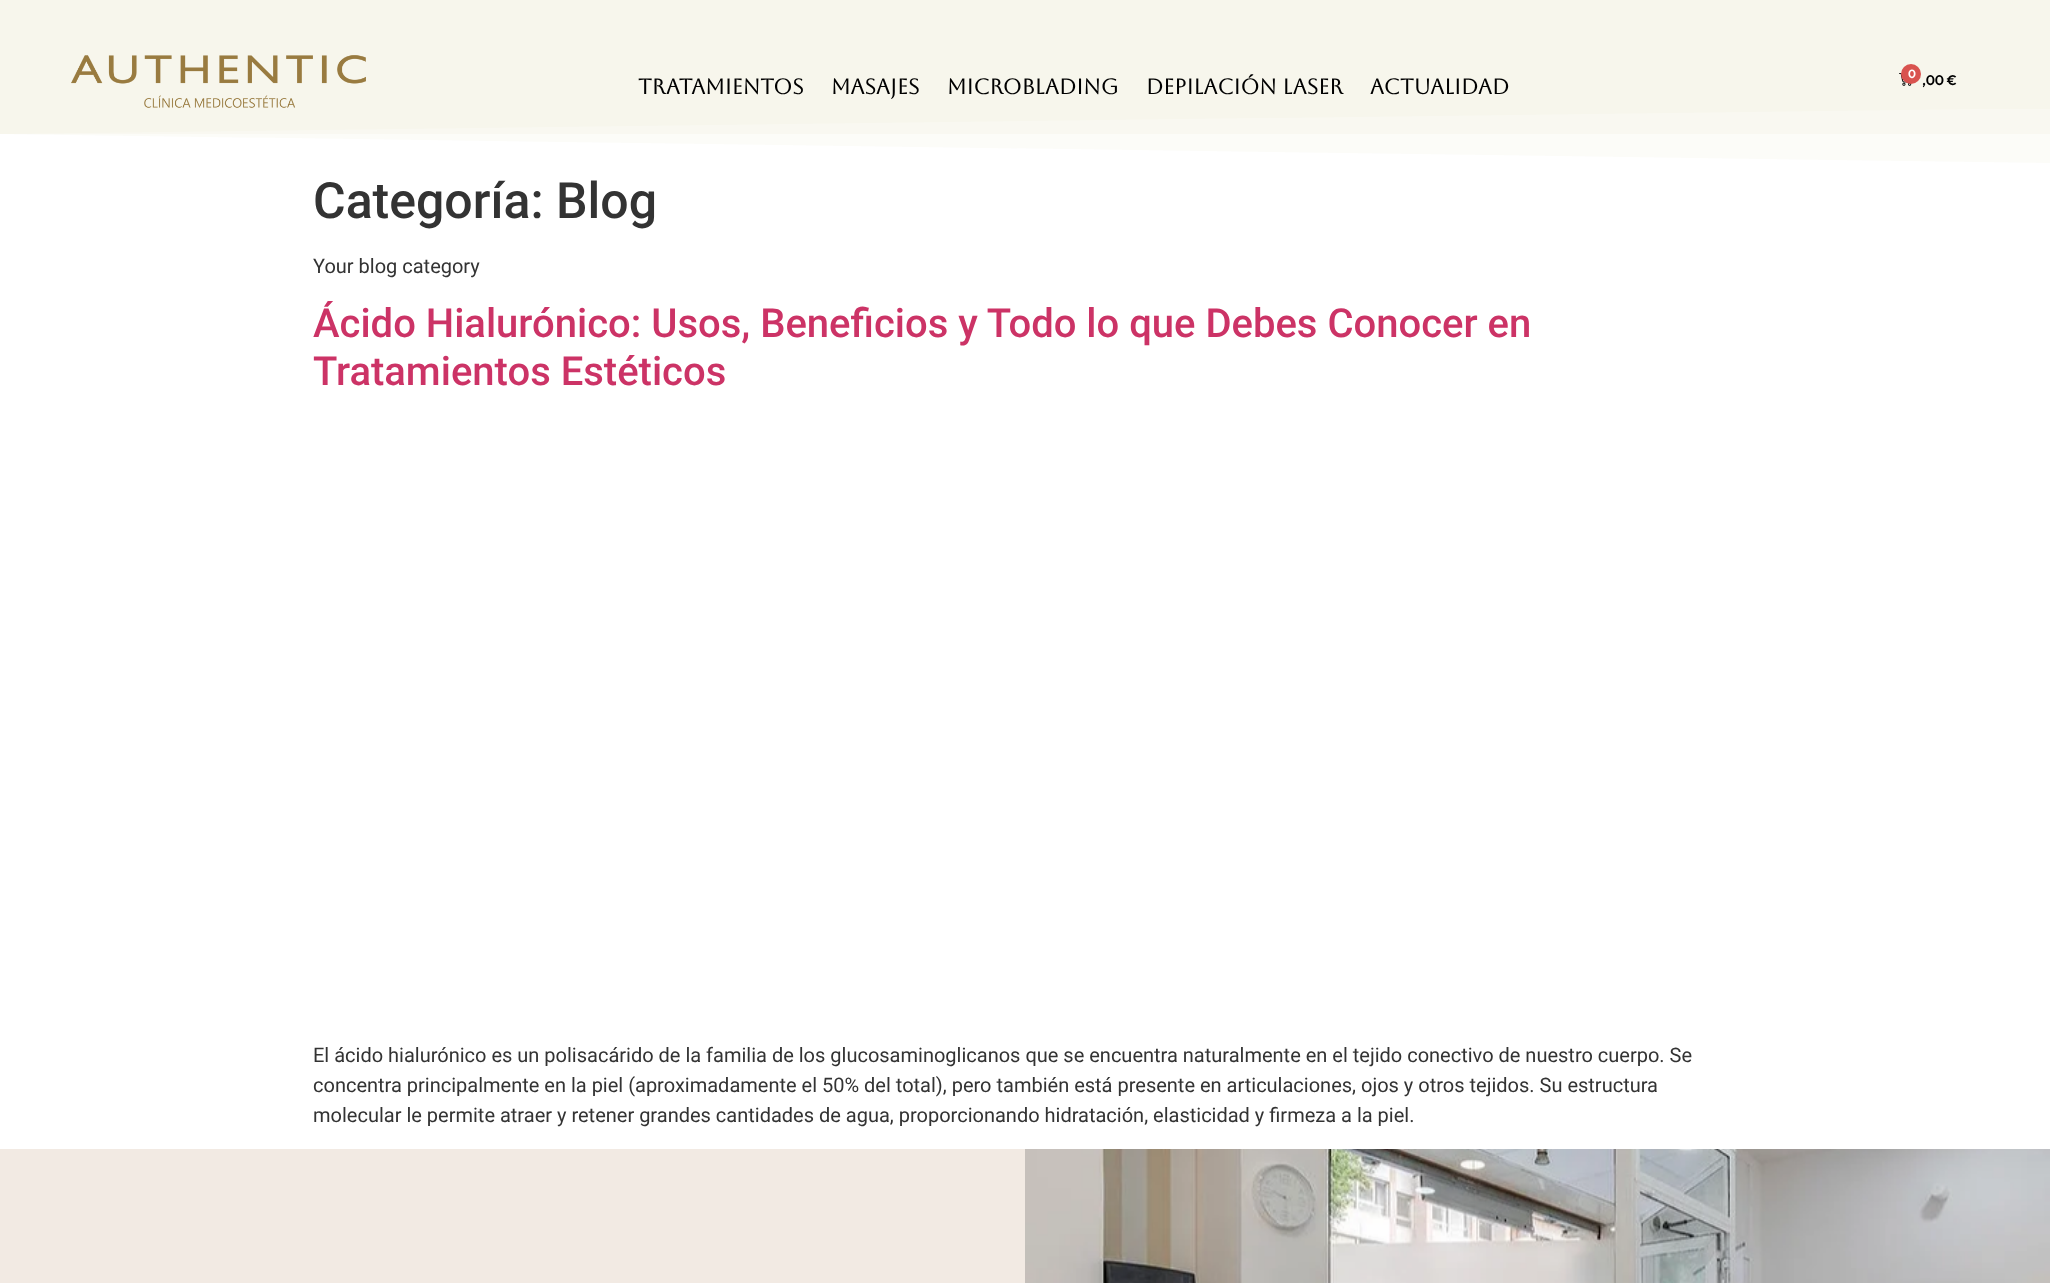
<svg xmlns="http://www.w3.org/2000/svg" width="2050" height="1283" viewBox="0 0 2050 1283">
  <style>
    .t1 { font: bold 21.25px Aboreto; fill: #000; }
    .t2 { font: 600 12px Outfit; fill: #fff; }
    .t3 { font: 600 14px Outfit; fill: #000; }
    .t4 { font: 500 50px Roboto; fill: #333; }
    .t5 { font: 20px Roboto; fill: #333; }
    .t6 { font: 500 40px Roboto; fill: #c36; }
  </style>
  <defs>
    <clipPath id="clip1"><rect x="0" y="109" width="2050" height="55"/></clipPath>
  </defs>
  <rect width="100%" height="100%" fill="#fff"/>
  <rect x="0" y="0" width="2050" height="134" fill="#f7f6ec"/>
  <rect x="3" y="134" width="2047" height="29" fill="#fbfbf6"/>
  <image x="71" y="55" width="295" height="53" href="images/1.png"/>
  <text x="638" y="94" class="t1">TRATAMIENTOS</text>
  <text x="831" y="94" class="t1">MASAJES</text>
  <text x="947" y="94" class="t1">MICROBLADING</text>
  <text x="1146" y="94" class="t1">DEPILACIÓN LASER</text>
  <text x="1370" y="94" class="t1">ACTUALIDAD</text>
  <image x="1899" y="73" width="13" height="13" href="images/2.png"/>
  <circle cx="1911" cy="74" r="10" fill="#d9534f"/>
  <text x="1908" y="78" class="t2">0</text>
  <text x="1922" y="85" class="t3">,00 €</text>
  <path d="M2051 163H-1V134Z" fill="#fff"/>
  <g clip-path="url(#clip1)">
    <path d="M-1 163H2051V108L-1 134Z" fill="#ffffff40"/>
  </g>
  <text x="313" y="218" class="t4">Categoría: Blog</text>
  <text x="313" y="273" class="t5">Your blog category</text>
  <text x="313" y="337" class="t6">Ácido Hialurónico: Usos, Beneficios y Todo lo que Debes Conocer en</text>
  <text x="313" y="385" class="t6">Tratamientos Estéticos</text>
  <text x="313" y="1062" class="t5">El ácido hialurónico es un polisacárido de la familia de los glucosaminoglicanos que se encuentra naturalmente en el tejido conectivo de nuestro cuerpo. Se</text>
  <text x="313" y="1092" class="t5">concentra principalmente en la piel (aproximadamente el 50% del total), pero también está presente en articulaciones, ojos y otros tejidos. Su estructura</text>
  <text x="313" y="1122" class="t5">molecular le permite atraer y retener grandes cantidades de agua, proporcionando hidratación, elasticidad y firmeza a la piel.</text>
  <rect x="0" y="1149" width="1025" height="134" fill="#f2eae3"/>
  <image x="1025" y="1149" width="1025" height="134" href="images/3.png"/>
</svg>
